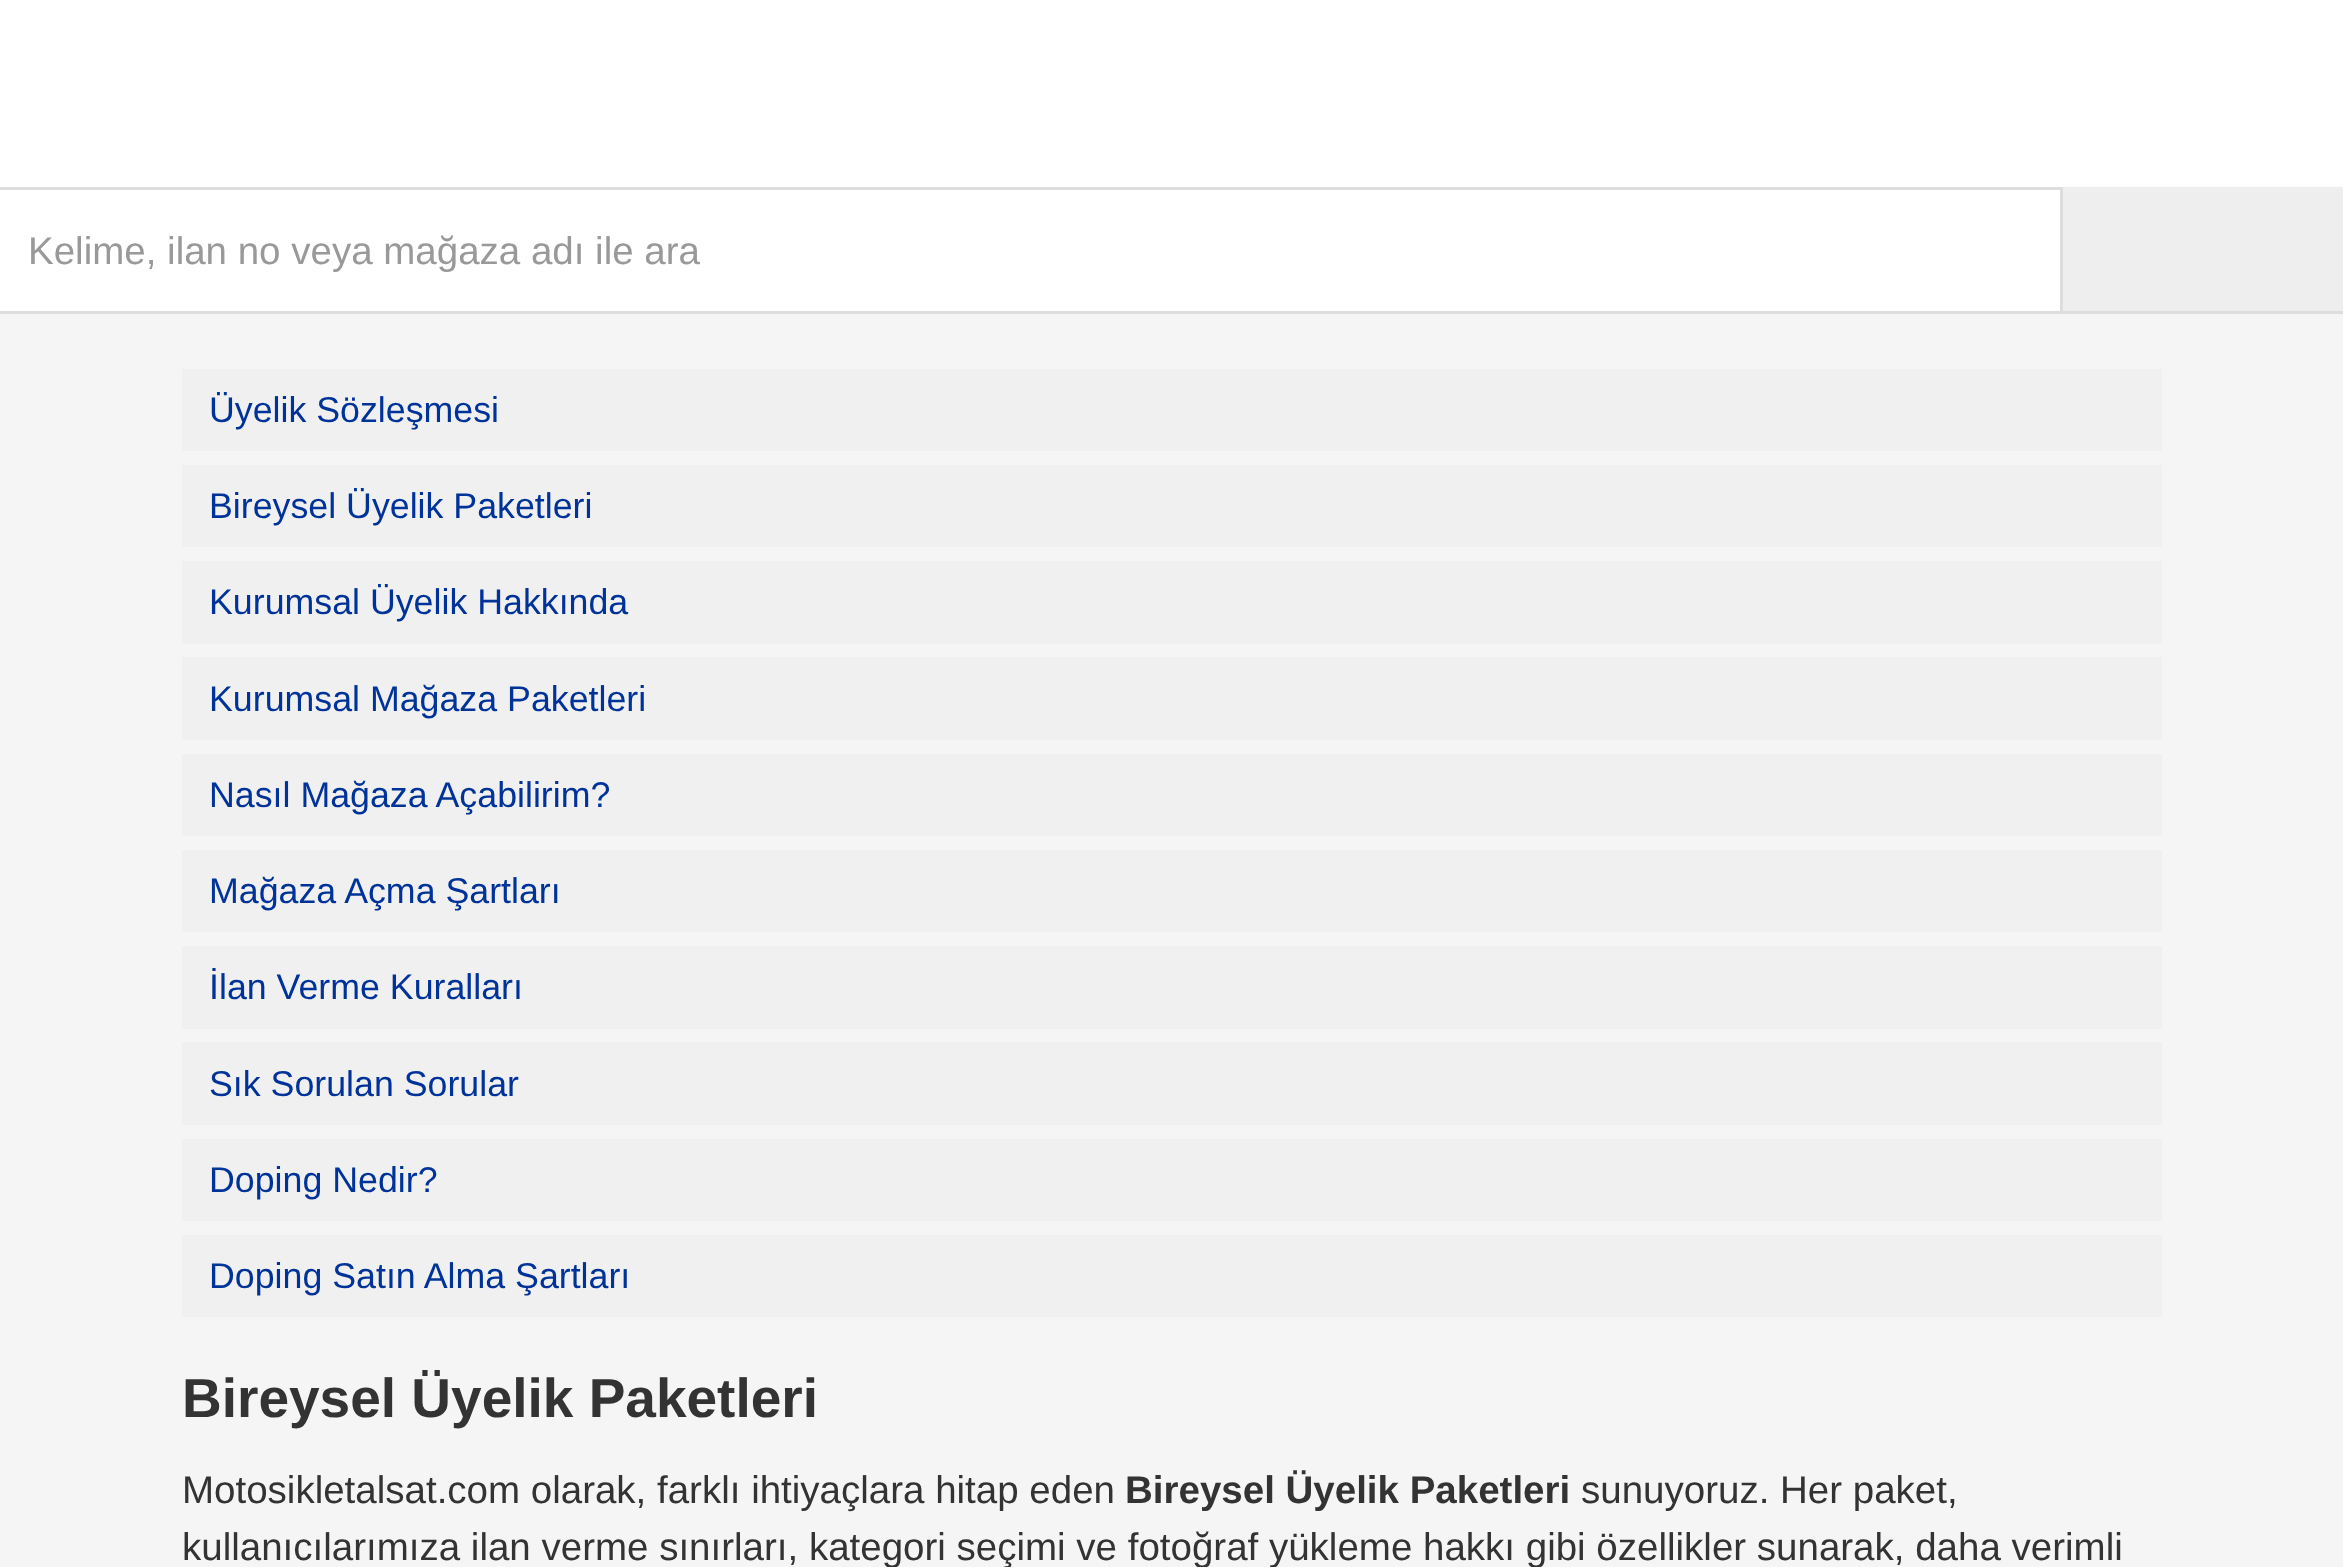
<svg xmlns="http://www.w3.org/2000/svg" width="2343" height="1567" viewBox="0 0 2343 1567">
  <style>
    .t1 { font: 38.5px Liberation Sans; fill: #999; }
    .t2 { font: 35.75px Liberation Sans; fill: #039; }
    .t3 { font: bold 55px Liberation Sans; fill: #333; }
    .t4 { font: 38.5px Liberation Sans; fill: #333; }
    .t5 { font: bold 38.5px Liberation Sans; fill: #333; }
  </style>
  <rect width="100%" height="100%" fill="#f5f5f5"/>
  <rect x="0" y="0" width="2343" height="187" fill="#fff"/>
  <rect x="0" y="190" width="2060" height="121" fill="#fff"/>
  <rect x="0" y="187" width="2063" height="3" fill="#ddd"/>
  <rect x="2060" y="187" width="3" height="127" fill="#ddd"/>
  <rect x="0" y="311" width="2343" height="3" fill="#ddd"/>
  <text x="28" y="264" class="t1">Kelime, ilan no veya mağaza adı ile ara</text>
  <rect x="2063" y="187" width="280" height="124" fill="#eee"/>
  <rect x="182" y="369" width="1980" height="82" fill="#f0f0f0"/>
  <text x="209" y="422" class="t2">Üyelik Sözleşmesi</text>
  <rect x="182" y="465" width="1980" height="82" fill="#f0f0f0"/>
  <text x="209" y="518" class="t2">Bireysel Üyelik Paketleri</text>
  <rect x="182" y="561" width="1980" height="83" fill="#f0f0f0"/>
  <text x="209" y="614" class="t2">Kurumsal Üyelik Hakkında</text>
  <rect x="182" y="657" width="1980" height="83" fill="#f0f0f0"/>
  <text x="209" y="711" class="t2">Kurumsal Mağaza Paketleri</text>
  <rect x="182" y="754" width="1980" height="82" fill="#f0f0f0"/>
  <text x="209" y="807" class="t2">Nasıl Mağaza Açabilirim?</text>
  <rect x="182" y="850" width="1980" height="82" fill="#f0f0f0"/>
  <text x="209" y="903" class="t2">Mağaza Açma Şartları</text>
  <rect x="182" y="946" width="1980" height="83" fill="#f0f0f0"/>
  <text x="209" y="999" class="t2">İlan Verme Kuralları</text>
  <rect x="182" y="1042" width="1980" height="83" fill="#f0f0f0"/>
  <text x="209" y="1096" class="t2">Sık Sorulan Sorular</text>
  <rect x="182" y="1139" width="1980" height="82" fill="#f0f0f0"/>
  <text x="209" y="1192" class="t2">Doping Nedir?</text>
  <rect x="182" y="1235" width="1980" height="82" fill="#f0f0f0"/>
  <text x="209" y="1288" class="t2">Doping Satın Alma Şartları</text>
  <text x="182" y="1417" class="t3">Bireysel Üyelik Paketleri</text>
  <text x="182" y="1503" class="t4">Motosikletalsat.com olarak, farklı ihtiyaçlara hitap eden</text>
  <text x="1125" y="1503" class="t5">Bireysel Üyelik Paketleri</text>
  <text x="1581" y="1503" class="t4">sunuyoruz. Her paket,</text>
  <text x="182" y="1560" class="t4">kullanıcılarımıza ilan verme sınırları, kategori seçimi ve fotoğraf yükleme hakkı gibi özellikler sunarak, daha verimli</text>
</svg>
